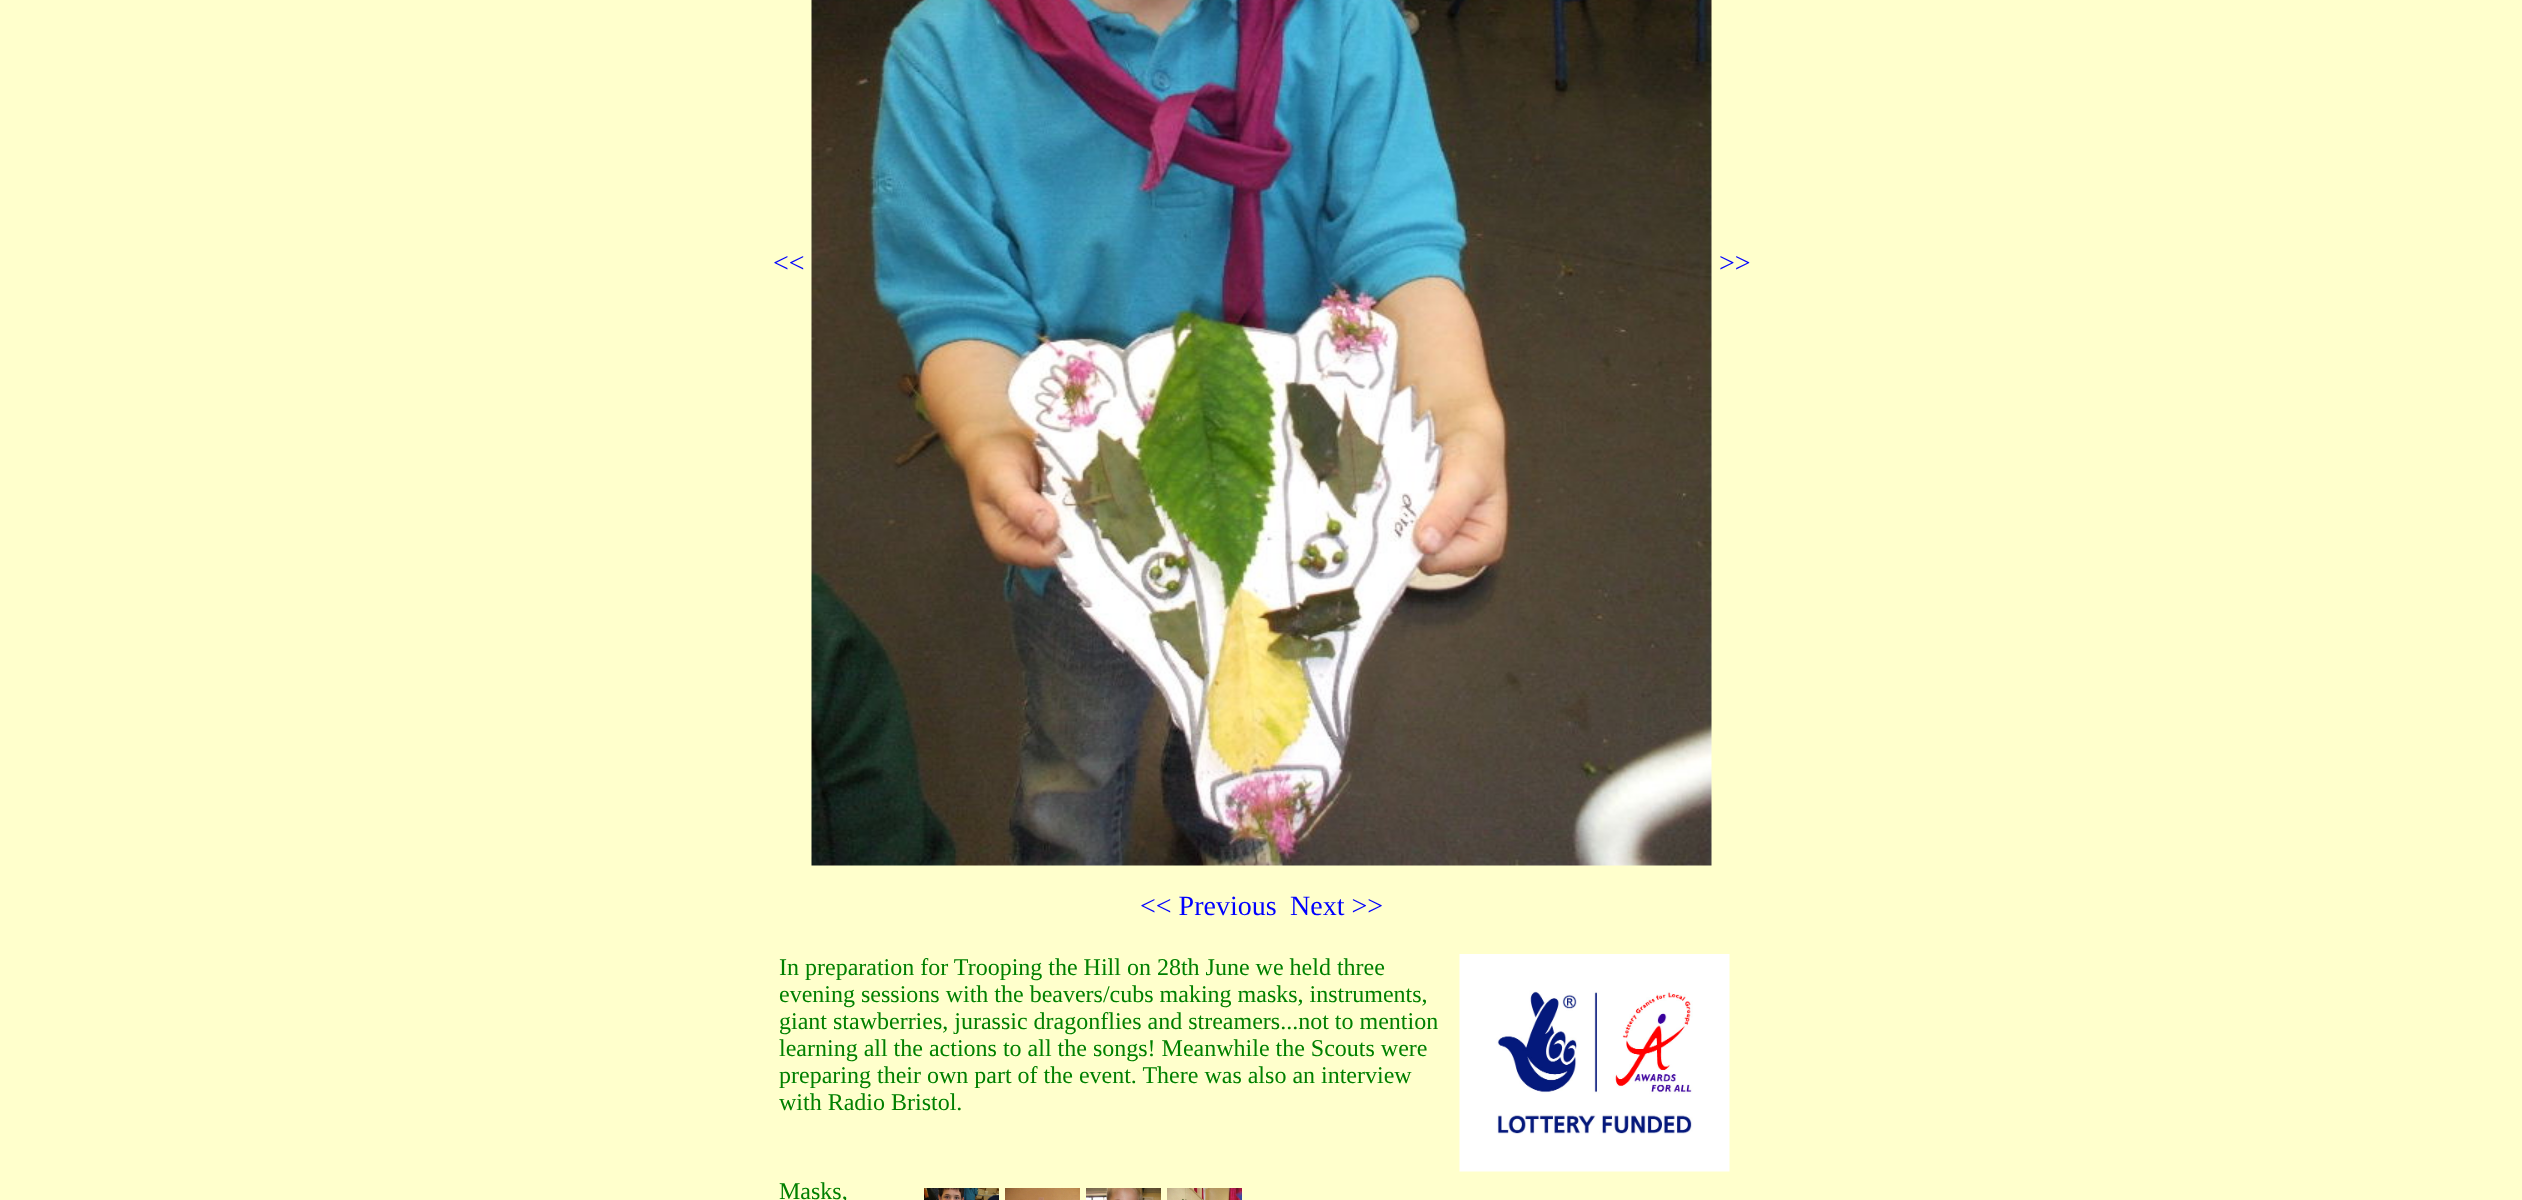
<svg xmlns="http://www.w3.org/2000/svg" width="2522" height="1200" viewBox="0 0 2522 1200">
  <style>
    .t1 { font: 28px Liberation Serif; fill: #00f; }
    .t2 { font: 24px Liberation Serif; fill: #008000; }
  </style>
  <rect width="100%" height="100%" fill="#ffc"/>
  <text x="773" y="272" class="t1">&lt;&lt;</text>
  <image x="811" y="0" width="901" height="866" href="images/1.png"/>
  <text x="1719" y="272" class="t1">&gt;&gt;</text>
  <text x="1140" y="915" class="t1">&lt;&lt; Previous</text>
  <text x="1290" y="915" class="t1">Next &gt;&gt;</text>
  <text x="779" y="975" class="t2">In preparation for Trooping the Hill on 28th June we held three</text>
  <image x="1459" y="954" width="271" height="218" href="images/2.png"/>
  <text x="779" y="1002" class="t2">evening sessions with the beavers/cubs making masks, instruments,</text>
  <text x="779" y="1029" class="t2">giant stawberries, jurassic dragonflies and streamers...not to mention</text>
  <text x="779" y="1056" class="t2">learning all the actions to all the songs! Meanwhile the Scouts were</text>
  <text x="779" y="1083" class="t2">preparing their own part of the event. There was also an interview</text>
  <text x="779" y="1110" class="t2">with Radio Bristol.</text>
  <text x="779" y="1199" class="t2">Masks,</text>
  <image x="924" y="1188" width="75" height="12" href="images/3.png"/>
  <image x="1005" y="1188" width="75" height="12" href="images/4.png"/>
  <image x="1086" y="1188" width="75" height="12" href="images/5.png"/>
  <image x="1167" y="1188" width="75" height="12" href="images/6.png"/>
</svg>
